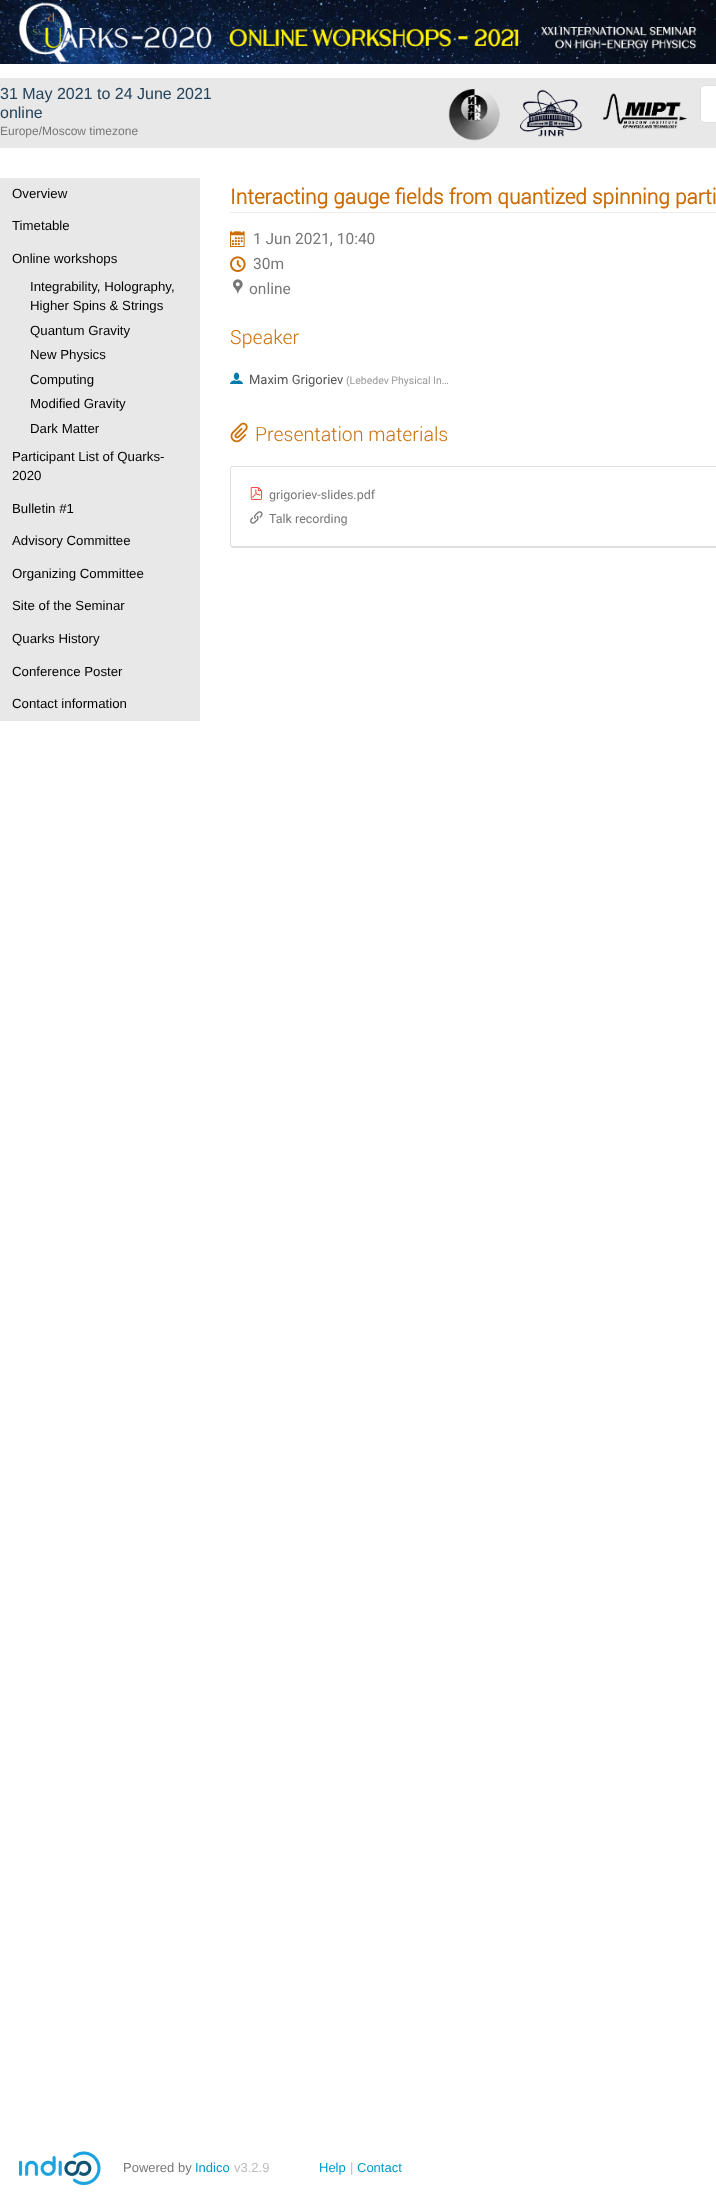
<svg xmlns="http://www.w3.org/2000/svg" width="716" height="2211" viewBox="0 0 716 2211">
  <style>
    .t1 { font: 16px Liberation Sans; fill: #24425a; }
    .t2 { font: 12px Liberation Sans; fill: #777; }
    .t3 { font: 13.25px 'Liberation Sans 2'; fill: #000; }
    .t4 { font: bold 20.8px Roboto; fill: #cb6d04; }
    .t5 { font: 15.5px Roboto; fill: #777; }
    .t6 { font: 300 19.5px Roboto; fill: #cb6d04; }
    .t7 { font: 13px Roboto; fill: #555; }
    .t8 { font: 10.5px Roboto; fill: #999; }
    .t9 { font: 12.5px Roboto; fill: #777; }
    .t10 { font: 13px Liberation Sans; fill: #777; }
    .t11 { font: 13px Liberation Sans; fill: #09c; }
    .t12 { font: 13px Liberation Sans; fill: #bbb; }
  </style>
  <rect width="100%" height="100%" fill="#fff"/>
  <image x="0" y="0" width="716" height="64" href="images/1.png"/>
  <rect x="0" y="78" width="716" height="70" fill="#e8e8e8"/>
  <image x="448" y="89" width="239" height="52" href="images/2.png"/>
  <text x="0" y="99" class="t1">31 May 2021 to 24 June 2021</text>
  <text x="0" y="118" class="t1">online</text>
  <text x="0" y="135" class="t2">Europe/Moscow timezone</text>
  <rect x="700" y="85" width="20" height="38" rx="4" fill="#fff"/>
  <rect x="700.5" y="85.5" width="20" height="37" rx="3.5" fill="none" stroke="#22242626"/>
  <rect x="0" y="178" width="200" height="543" fill="#e8e8e8"/>
  <text x="12" y="198" class="t3">Overview</text>
  <text x="12" y="230" class="t3">Timetable</text>
  <text x="12" y="263" class="t3">Online workshops</text>
  <text x="30" y="291" class="t3">Integrability, Holography,</text>
  <text x="30" y="310" class="t3">Higher Spins &amp; Strings</text>
  <text x="30" y="335" class="t3">Quantum Gravity</text>
  <text x="30" y="359" class="t3">New Physics</text>
  <text x="30" y="384" class="t3">Computing</text>
  <text x="30" y="408" class="t3">Modified Gravity</text>
  <text x="30" y="433" class="t3">Dark Matter</text>
  <text x="12" y="461" class="t3">Participant List of Quarks-</text>
  <text x="12" y="480" class="t3">2020</text>
  <text x="12" y="513" class="t3">Bulletin #1</text>
  <text x="12" y="545" class="t3">Advisory Committee</text>
  <text x="12" y="578" class="t3">Organizing Committee</text>
  <text x="12" y="610" class="t3">Site of the Seminar</text>
  <text x="12" y="643" class="t3">Quarks History</text>
  <text x="12" y="676" class="t3">Conference Poster</text>
  <text x="12" y="708" class="t3">Contact information</text>
  <rect x="230" y="212" width="486" height="1" fill="#ebebeb"/>
  <text x="230" y="204" class="t4">Interacting gauge fields from quantized spinning parti</text>
  <image x="230" y="231" width="15" height="16" href="images/3.png"/>
  <text x="253" y="244" class="t5">1 Jun 2021, 10:40</text>
  <image x="230" y="256" width="16" height="16" href="images/4.png"/>
  <text x="253" y="269" class="t5">30m</text>
  <image x="232" y="279" width="11" height="16" href="images/5.png"/>
  <text x="249" y="294" class="t5">online</text>
  <text x="230" y="344" class="t6">Speaker</text>
  <image x="230" y="372" width="13" height="12" href="images/6.png"/>
  <text x="249" y="384" class="t7">Maxim Grigoriev</text>
  <text x="346" y="384" class="t8">(Lebedev Physical In…</text>
  <image x="230" y="422" width="18" height="21" href="images/7.png"/>
  <text x="255" y="441" class="t6">Presentation materials</text>
  <rect x="231" y="467" width="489" height="81" rx="2" fill="#e1e1e1" filter="blur(0.5px)"/>
  <rect x="230.5" y="466.5" width="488" height="80" rx="1.5" fill="#fff" stroke="#dfdfdf"/>
  <image x="250" y="487" width="12" height="13" href="images/8.png"/>
  <text x="269" y="499" class="t9">grigoriev-slides.pdf</text>
  <image x="250" y="511" width="13" height="13" href="images/9.png"/>
  <text x="269" y="523" class="t9">Talk recording</text>
  <image x="19" y="2151" width="82" height="34" href="images/10.png"/>
  <text x="123" y="2172" class="t10">Powered by</text>
  <text x="195" y="2172" class="t11">Indico</text>
  <text x="234" y="2172" class="t12">v3.2.9</text>
  <text x="319" y="2172" class="t11">Help</text>
  <text x="350" y="2172" class="t12">|</text>
  <text x="357" y="2172" class="t11">Contact</text>
</svg>
